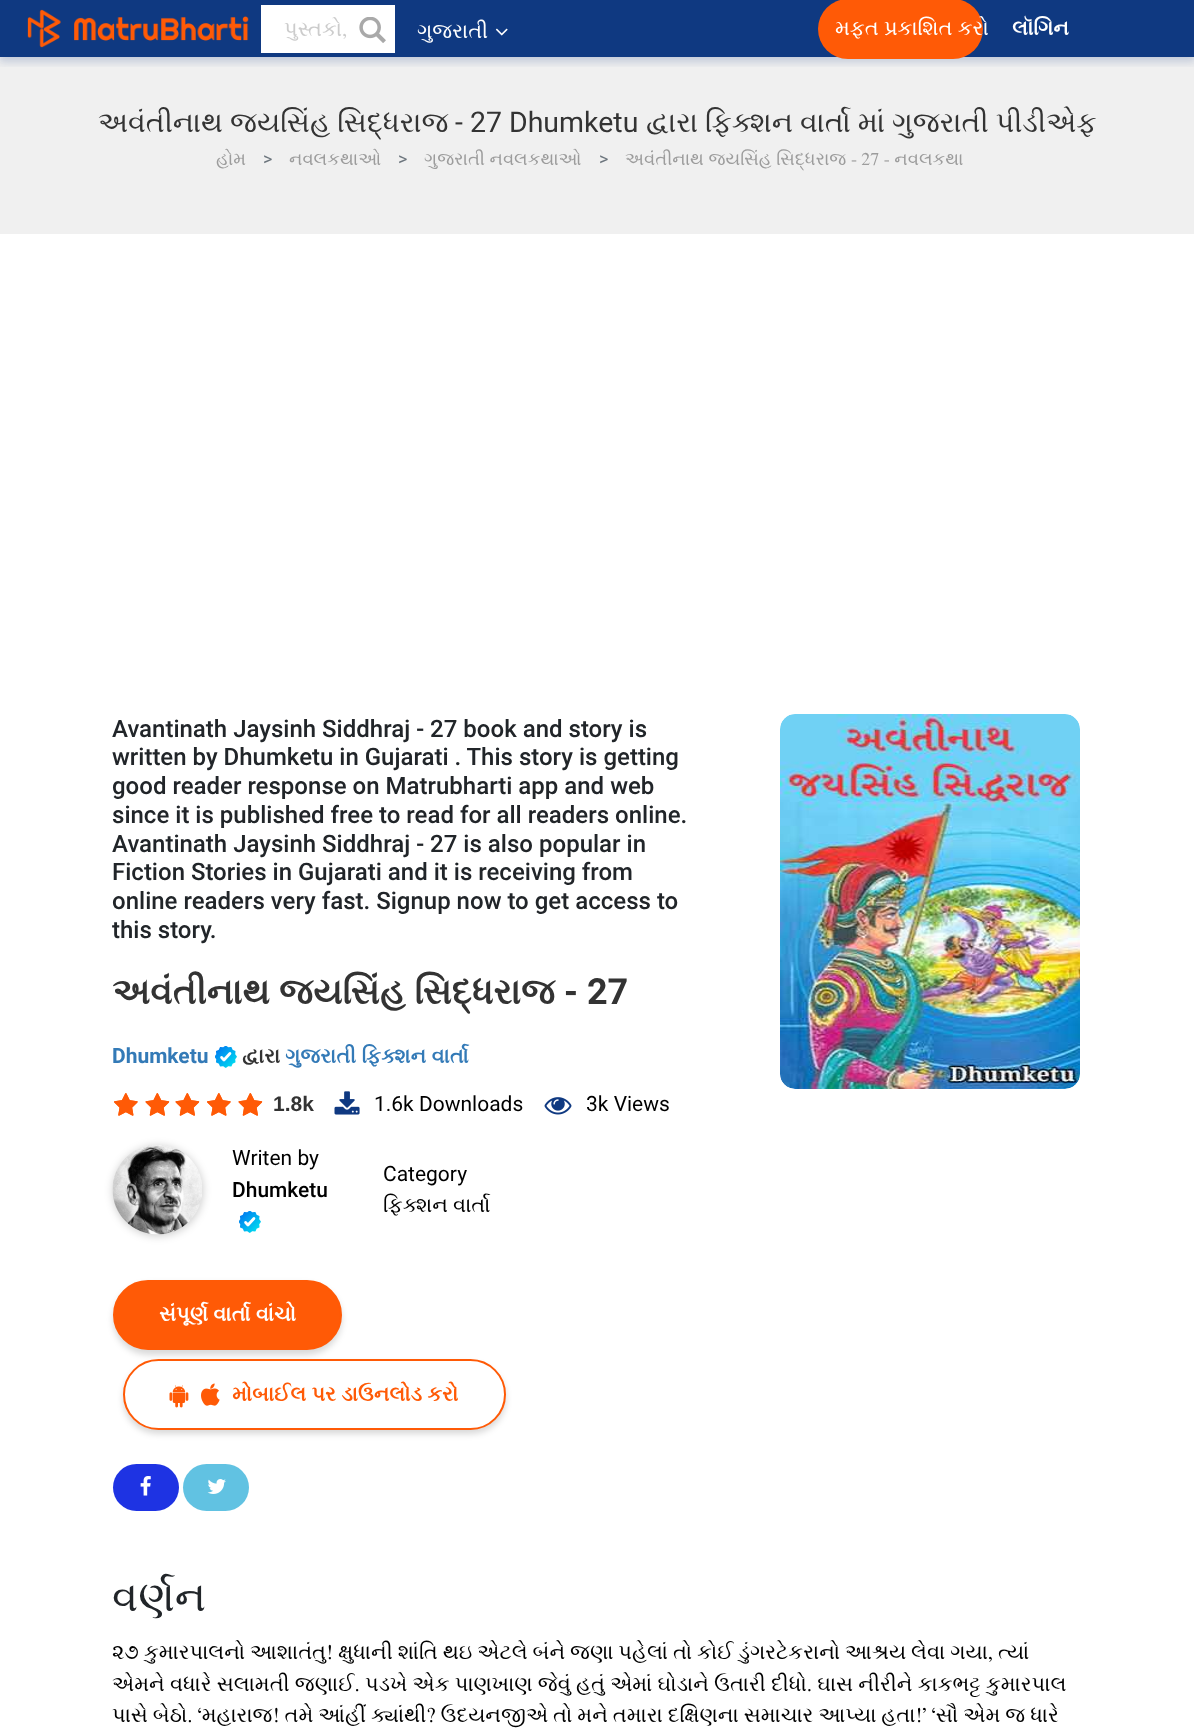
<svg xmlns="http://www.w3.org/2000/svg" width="1194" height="1734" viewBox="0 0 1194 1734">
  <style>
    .t1 { font: 21px FreeSerif; fill: #ccc; }
    .t2 { font: 21px FreeSerif; fill: #fff; }
    .t3 { font: bold 21px FreeSerif; fill: #fff; }
    .t4 { font: 28.5px FreeSerif; fill: #333; }
    .t5 { font: 28.5px Roboto; fill: #333; }
    .t6 { font: 18px FreeSerif; fill: #9c9c9c; }
    .t7 { font: 18px Roboto; fill: #6c757d; }
    .t8 { font: 500 24px Roboto; fill: #212529; }
    .t9 { font: bold 36px FreeSerif; fill: #333; }
    .t10 { font: bold 36px Roboto; fill: #333; }
    .t11 { font: bold 21px Roboto; fill: #337ab7; }
    .t12 { font: bold 21px FreeSerif; fill: #333; }
    .t13 { font: bold 21px FreeSerif; fill: #337ab7; }
    .t14 { font: bold 21px Liberation Sans; fill: #333; }
    .t15 { font: 21px Roboto; fill: #000; }
    .t16 { font: 500 21px Roboto; fill: #000; }
    .t17 { font: 21px FreeSerif; fill: #000; }
    .t18 { font: bold 21px FreeSerif; fill: #ff5a06; }
    .t19 { font: 42px FreeSerif; fill: #212529; }
  </style>
  <defs>
    <clipPath id="clip1"><rect x="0" y="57" width="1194" height="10"/></clipPath>
    <clipPath id="clip2"><rect x="279" y="17" width="75" height="25"/></clipPath>
  </defs>
  <rect width="100%" height="100%" fill="#fff"/>
  <rect x="0" y="0" width="1194" height="57" fill="#0f3981"/>
  <rect x="0" y="57" width="1194" height="177" fill="#f0f0f0"/>
  <g clip-path="url(#clip1)">
    <rect x="-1" y="2" width="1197" height="60" fill="#0f398133" filter="blur(4px)"/>
  </g>
  <image x="27" y="9" width="222" height="39" href="images/1.png"/>
  <rect x="261" y="5" width="134" height="48" fill="#fff"/>
  <g clip-path="url(#clip2)">
    <text x="284" y="36" class="t1">પુસ્તકો,</text>
  </g>
  <image x="359" y="17" width="27" height="26" href="images/2.png"/>
  <text x="417" y="38" class="t2">ગુજરાતી</text>
  <image x="495" y="28" width="13" height="8" href="images/3.png"/>
  <rect x="818" y="-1" width="165" height="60" rx="30" fill="#ff5a06"/>
  <text x="835" y="35" class="t2">મફત પ્રકાશિત કરો</text>
  <text x="1012" y="35" class="t3">લૉગિન</text>
  <text x="98" y="132" class="t4">અવંતીનાથ જયસિંહ સિદ્ધરાજ</text>
  <text x="455" y="132" class="t5">- 27 Dhumketu</text>
  <text x="646" y="132" class="t4">દ્વારા ફિક્શન વાર્તા માં ગુજરાતી પીડીએફ</text>
  <text x="216" y="165" class="t6">હોમ</text>
  <text x="263" y="165" class="t7">&gt;</text>
  <text x="289" y="165" class="t6">નવલકથાઓ</text>
  <text x="398" y="165" class="t7">&gt;</text>
  <text x="424" y="165" class="t6">ગુજરાતી નવલકથાઓ</text>
  <text x="599" y="165" class="t7">&gt;</text>
  <text x="625" y="165" class="t6">અવંતીનાથ જયસિંહ સિદ્ધરાજ - 27 - નવલકથા</text>
  <text x="112" y="737" class="t8">Avantinath Jaysinh Siddhraj - 27 book and story is</text>
  <text x="112" y="765" class="t8">written by Dhumketu in Gujarati . This story is getting</text>
  <text x="112" y="794" class="t8">good reader response on Matrubharti app and web</text>
  <text x="112" y="823" class="t8">since it is published free to read for all readers online.</text>
  <text x="112" y="852" class="t8">Avantinath Jaysinh Siddhraj - 27 is also popular in</text>
  <text x="112" y="880" class="t8">Fiction Stories in Gujarati and it is receiving from</text>
  <text x="112" y="909" class="t8">online readers very fast. Signup now to get access to</text>
  <text x="112" y="938" class="t8">this story.</text>
  <text x="112" y="1004" class="t9">અવંતીનાથ જયસિંહ સિદ્ધરાજ</text>
  <text x="564" y="1004" class="t10">- 27</text>
  <text x="112" y="1063" class="t11">Dhumketu</text>
  <image x="215" y="1046" width="22" height="22" href="images/4.png"/>
  <text x="242" y="1063" class="t12">દ્વારા</text>
  <text x="285" y="1063" class="t13">ગુજરાતી ફિક્શન વાર્તા</text>
  <image x="114" y="1093" width="24" height="23" href="images/5.png"/>
  <image x="145" y="1093" width="25" height="23" href="images/6.png"/>
  <image x="175" y="1093" width="25" height="23" href="images/6.png"/>
  <image x="207" y="1093" width="24" height="23" href="images/5.png"/>
  <image x="238" y="1093" width="25" height="23" href="images/6.png"/>
  <image x="114" y="1093" width="24" height="23" href="images/7.png"/>
  <image x="145" y="1093" width="25" height="23" href="images/8.png"/>
  <image x="175" y="1093" width="25" height="23" href="images/8.png"/>
  <image x="207" y="1093" width="24" height="23" href="images/7.png"/>
  <image x="238" y="1093" width="25" height="23" href="images/8.png"/>
  <text x="273" y="1111" class="t14">1.8k</text>
  <image x="334" y="1091" width="26" height="24" href="images/9.png"/>
  <text x="374" y="1111" class="t15">1.6k Downloads</text>
  <image x="544" y="1097" width="28" height="18" href="images/10.png"/>
  <text x="586" y="1111" class="t15">3k Views</text>
  <rect x="113" y="1146" width="90" height="90" rx="45" fill="#00000033" filter="blur(4px)"/>
  <image x="112" y="1145" width="90" height="90" href="images/11.png"/>
  <text x="232" y="1165" class="t15">Writen by</text>
  <text x="232" y="1197" class="t16">Dhumketu</text>
  <image x="239" y="1211" width="22" height="22" href="images/4.png"/>
  <text x="383" y="1181" class="t15">Category</text>
  <text x="383" y="1212" class="t17">ફિક્શન વાર્તા</text>
  <rect x="113" y="1284" width="229" height="71" rx="35.5" fill="#00000026" filter="blur(3px)"/>
  <rect x="114" y="1281" width="227" height="68" rx="34" fill="#ff5a06" stroke="#ff5a06" stroke-width="2"/>
  <text x="159" y="1321" class="t3">સંપૂર્ણ વાર્તા વાંચો</text>
  <rect x="123" y="1364" width="383" height="70" rx="35" fill="#00000026" filter="blur(3px)"/>
  <rect x="124" y="1360" width="381" height="69" rx="34.5" fill="#fff" stroke="#ff5a06" stroke-width="2"/>
  <image x="169" y="1385" width="20" height="23" href="images/12.png"/>
  <image x="201" y="1383" width="19" height="23" href="images/13.png"/>
  <text x="232" y="1401" class="t18">મોબાઈલ પર ડાઉનલોડ કરો</text>
  <rect x="113" y="1464" width="66" height="47" rx="23.5" fill="#1e33e3"/>
  <image x="140" y="1476" width="11" height="20" href="images/14.png"/>
  <rect x="183" y="1464" width="66" height="47" rx="23.5" fill="#61c2e2"/>
  <image x="207" y="1479" width="19" height="15" href="images/15.png"/>
  <image x="780" y="714" width="300" height="375" href="images/16.png"/>
  <text x="112" y="1611" class="t19">વર્ણન</text>
  <text x="112" y="1659" word-spacing="-0.25" class="t17">૨૭ કુમારપાલનો આશાતંતુ! ક્ષુધાની શાંતિ થઇ એટલે બંને જણા પહેલાં તો કોઈ ડુંગરટેકરાનો આશ્રય લેવા ગયા, ત્યાં</text>
  <text x="112" y="1691" class="t17">એમને વધારે સલામતી જણાઈ. પડખે એક પાણખાણ જેવું હતું એમાં ઘોડાને ઉતારી દીધો. ઘાસ નીરીને કાકભટ્ટ કુમારપાલ</text>
  <text x="112" y="1722" word-spacing="-0.2" class="t17">પાસે બેઠો. ‘મહારાજ! તમે આંહીં ક્યાંથી? ઉદયનજીએ તો મને તમારા દક્ષિણના સમાચાર આપ્યા હતા!’ ‘સૌ એમ જ ધારે</text>
</svg>
